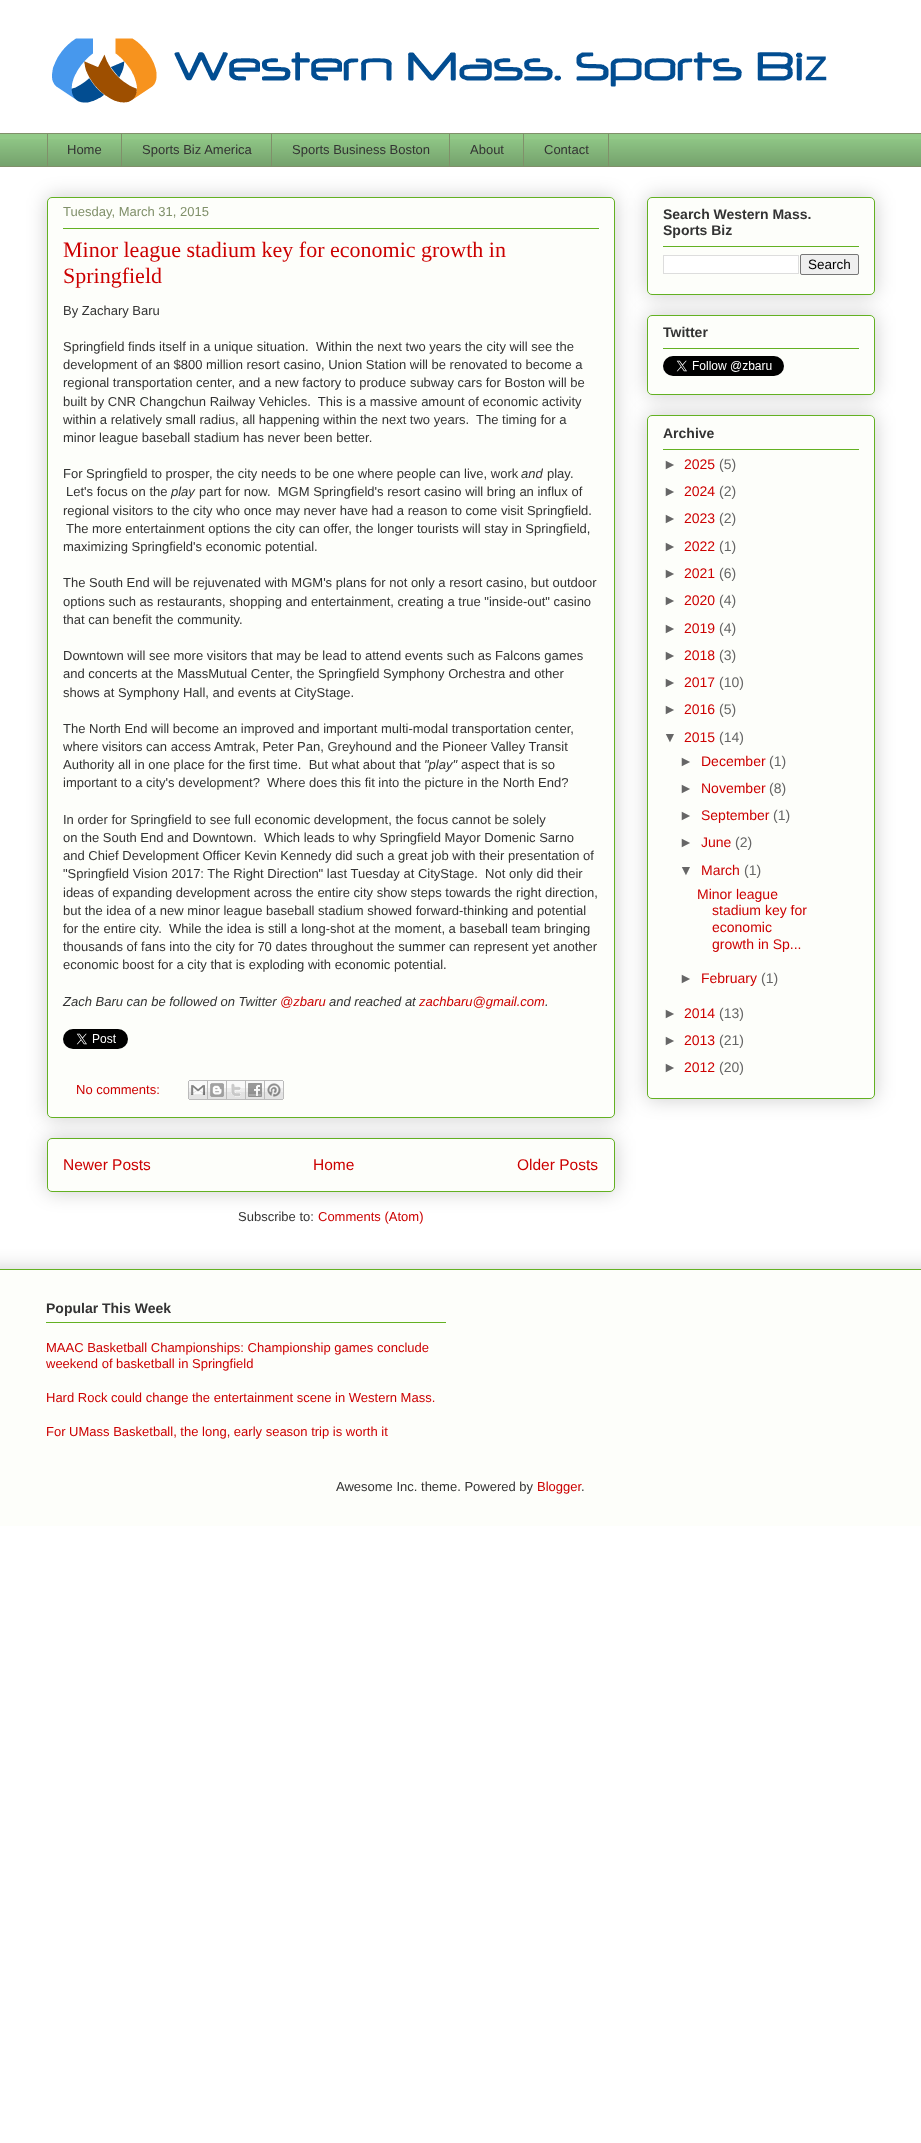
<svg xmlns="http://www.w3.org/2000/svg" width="921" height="2143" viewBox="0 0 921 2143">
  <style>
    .t1 { font: 13px Liberation Sans; fill: #333; }
    .t2 { font: 13px Liberation Sans; fill: #80906a; }
    .t3 { font: 22px Liberation Serif; fill: #c00; }
    .t4 { font: italic 13px Liberation Sans; fill: #333; }
    .t5 { font: italic 13px Liberation Sans; fill: #c00; }
    .t6 { font: 13px Liberation Sans; fill: #c00; }
    .t7 { font: 15.5px Liberation Sans; fill: #c00; }
    .t8 { font: bold 14px Liberation Sans; fill: #333; }
    .t9 { font: 13.5px Liberation Sans; fill: #000; }
    .t10 { font: 14px Liberation Sans; fill: #666; }
    .t11 { font: 14px Liberation Sans; fill: #c00; }
  </style>
  <defs>
    <clipPath id="clip1"><rect x="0" y="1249" width="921" height="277"/></clipPath>
  </defs>
  <rect width="100%" height="100%" fill="#fff"/>
  <image x="52" y="38" width="775" height="65" href="images/1.png"/>
  <rect x="0" y="134" width="921" height="32" fill="#92ca88"/>
  <image x="0" y="139" width="921" height="27" href="images/2.png"/>
  <rect x="0" y="133" width="921" height="1" fill="#80906a"/>
  <rect x="47" y="133" width="1" height="34" fill="#80906a"/>
  <text x="67" y="154" class="t1">Home</text>
  <rect x="121" y="133" width="1" height="34" fill="#80906a"/>
  <text x="142" y="154" class="t1">Sports Biz America</text>
  <rect x="271" y="133" width="1" height="34" fill="#80906a"/>
  <text x="292" y="154" class="t1">Sports Business Boston</text>
  <rect x="449" y="133" width="1" height="34" fill="#80906a"/>
  <text x="470" y="154" class="t1">About</text>
  <rect x="523.5" y="133.5" width="85" height="33" fill="none" stroke="#80906a"/>
  <text x="544" y="154" class="t1">Contact</text>
  <rect x="0" y="166" width="921" height="1" fill="#80906a"/>
  <rect x="47" y="1138" width="568" height="54" rx="5" fill="#00000033" filter="blur(10px)"/>
  <rect x="47.5" y="1138.5" width="567" height="53" rx="4.5" fill="#fdfefa" stroke="#63b122"/>
  <rect x="47" y="197" width="568" height="921" rx="5" fill="#00000033" filter="blur(10px)"/>
  <rect x="47.5" y="197.5" width="567" height="920" rx="4.5" fill="#fdfefa" stroke="#63b122"/>
  <text x="63" y="216" class="t2">Tuesday, March 31, 2015</text>
  <rect x="63" y="228" width="536" height="1" fill="#63b122"/>
  <text x="63" y="257" class="t3">Minor league stadium key for economic growth in</text>
  <text x="63" y="283" class="t3">Springfield</text>
  <text x="63" y="315" class="t1">By Zachary Baru</text>
  <text x="63" y="351" class="t1" xml:space="preserve">Springfield finds itself in a unique situation.  Within the next two years the city will see the</text>
  <text x="63" y="369" class="t1">development of an $800 million resort casino, Union Station will be renovated to become a</text>
  <text x="63" y="387" class="t1">regional transportation center, and a new factory to produce subway cars for Boston will be</text>
  <text x="63" y="406" class="t1" xml:space="preserve">built by CNR Changchun Railway Vehicles.  This is a massive amount of economic activity</text>
  <text x="63" y="424" class="t1" xml:space="preserve">within a relatively small radius, all happening within the next two years.  The timing for a</text>
  <text x="63" y="442" class="t1">minor league baseball stadium has never been better.</text>
  <text x="63" y="478" class="t1">For Springfield to prosper, the city needs to be one where people can live, work</text>
  <text x="521" y="478" class="t4">and</text>
  <text x="547" y="478" class="t1">play.</text>
  <text x="66" y="496" class="t1">Let's focus on the</text>
  <text x="171" y="496" class="t4">play</text>
  <text x="199" y="496" class="t1" xml:space="preserve">part for now.  MGM Springfield's resort casino will bring an influx of</text>
  <text x="63" y="515" class="t1">regional visitors to the city who once may never have had a reason to come visit Springfield.</text>
  <text x="66" y="533" class="t1">The more entertainment options the city can offer, the longer tourists will stay in Springfield,</text>
  <text x="63" y="551" class="t1">maximizing Springfield's economic potential.</text>
  <text x="63" y="587" class="t1">The South End will be rejuvenated with MGM's plans for not only a resort casino, but outdoor</text>
  <text x="63" y="606" class="t1">options such as restaurants, shopping and entertainment, creating a true "inside-out" casino</text>
  <text x="63" y="624" class="t1">that can benefit the community.</text>
  <text x="63" y="660" class="t1">Downtown will see more visitors that may be lead to attend events such as Falcons games</text>
  <text x="63" y="678" class="t1">and concerts at the MassMutual Center, the Springfield Symphony Orchestra and other</text>
  <text x="63" y="697" class="t1">shows at Symphony Hall, and events at CityStage.</text>
  <text x="63" y="733" class="t1">The North End will become an improved and important multi-modal transportation center,</text>
  <text x="63" y="751" class="t1">where visitors can access Amtrak, Peter Pan, Greyhound and the Pioneer Valley Transit</text>
  <text x="63" y="769" class="t1" xml:space="preserve">Authority all in one place for the first time.  But what about that</text>
  <text x="424" y="769" class="t4">"play"</text>
  <text x="461" y="769" class="t1">aspect that is so</text>
  <text x="63" y="787" class="t1" xml:space="preserve">important to a city's development?  Where does this fit into the picture in the North End?</text>
  <text x="63" y="824" class="t1">In order for Springfield to see full economic development, the focus cannot be solely</text>
  <text x="63" y="842" class="t1" xml:space="preserve">on the South End and Downtown.  Which leads to why Springfield Mayor Domenic Sarno</text>
  <text x="63" y="860" class="t1">and Chief Development Officer Kevin Kennedy did such a great job with their presentation of</text>
  <text x="63" y="878" class="t1" xml:space="preserve">"Springfield Vision 2017: The Right Direction" last Tuesday at CityStage.  Not only did their</text>
  <text x="63" y="897" class="t1">ideas of expanding development across the entire city show steps towards the right direction,</text>
  <text x="63" y="915" class="t1">but the idea of a new minor league baseball stadium showed forward-thinking and potential</text>
  <text x="63" y="933" class="t1" xml:space="preserve">for the entire city.  While the idea is still a long-shot at the moment, a baseball team bringing</text>
  <text x="63" y="951" class="t1">thousands of fans into the city for 70 dates throughout the summer can represent yet another</text>
  <text x="63" y="969" class="t1">economic boost for a city that is exploding with economic potential.</text>
  <text x="63" y="1006" class="t4">Zach Baru can be followed on Twitter</text>
  <text x="280" y="1006" class="t5">@zbaru</text>
  <text x="329" y="1006" class="t4">and reached at</text>
  <text x="419" y="1006" class="t5">zachbaru@gmail.com</text>
  <text x="545" y="1006" class="t4">.</text>
  <image x="63" y="1029" width="65" height="20" href="images/3.png"/>
  <text x="76" y="1094" class="t6">No comments:</text>
  <image x="188" y="1080" width="20" height="20" href="images/4.png"/>
  <image x="208" y="1080" width="19" height="20" href="images/5.png"/>
  <image x="227" y="1080" width="19" height="20" href="images/6.png"/>
  <image x="246" y="1080" width="19" height="20" href="images/7.png"/>
  <image x="265" y="1080" width="19" height="20" href="images/8.png"/>
  <text x="63" y="1170" class="t7">Newer Posts</text>
  <text x="313" y="1170" class="t7">Home</text>
  <text x="517" y="1170" class="t7">Older Posts</text>
  <text x="238" y="1221" class="t1">Subscribe to:</text>
  <text x="318" y="1221" class="t6">Comments (Atom)</text>
  <rect x="647" y="197" width="228" height="98" rx="5" fill="#00000033" filter="blur(10px)"/>
  <rect x="647.5" y="197.5" width="227" height="97" rx="4.5" fill="#fdfefa" stroke="#63b122"/>
  <text x="663" y="219" class="t8">Search Western Mass.</text>
  <text x="663" y="235" class="t8">Sports Biz</text>
  <rect x="663" y="246" width="196" height="1" fill="#63b122"/>
  <rect x="663.5" y="255.5" width="135" height="18" fill="#fff" stroke="#ddd"/>
  <rect x="800.5" y="254.5" width="58" height="20" rx="1.5" fill="#efefef" stroke="#767676"/>
  <text x="808" y="269" class="t9">Search</text>
  <rect x="647" y="315" width="228" height="80" rx="5" fill="#00000033" filter="blur(10px)"/>
  <rect x="647.5" y="315.5" width="227" height="79" rx="4.5" fill="#fdfefa" stroke="#63b122"/>
  <text x="663" y="337" class="t8">Twitter</text>
  <rect x="663" y="348" width="196" height="1" fill="#63b122"/>
  <image x="663" y="356" width="121" height="20" href="images/9.png"/>
  <rect x="647" y="415" width="228" height="684" rx="5" fill="#00000033" filter="blur(10px)"/>
  <rect x="647.5" y="415.5" width="227" height="683" rx="4.5" fill="#fdfefa" stroke="#63b122"/>
  <text x="663" y="438" class="t8">Archive</text>
  <rect x="663" y="449" width="196" height="1" fill="#63b122"/>
  <text x="663" y="469" class="t10">►</text>
  <text x="684" y="469" class="t11">2025</text>
  <text x="719" y="469" class="t10">(5)</text>
  <text x="663" y="496" class="t10">►</text>
  <text x="684" y="496" class="t11">2024</text>
  <text x="719" y="496" class="t10">(2)</text>
  <text x="663" y="523" class="t10">►</text>
  <text x="684" y="523" class="t11">2023</text>
  <text x="719" y="523" class="t10">(2)</text>
  <text x="663" y="551" class="t10">►</text>
  <text x="684" y="551" class="t11">2022</text>
  <text x="719" y="551" class="t10">(1)</text>
  <text x="663" y="578" class="t10">►</text>
  <text x="684" y="578" class="t11">2021</text>
  <text x="719" y="578" class="t10">(6)</text>
  <text x="663" y="605" class="t10">►</text>
  <text x="684" y="605" class="t11">2020</text>
  <text x="719" y="605" class="t10">(4)</text>
  <text x="663" y="633" class="t10">►</text>
  <text x="684" y="633" class="t11">2019</text>
  <text x="719" y="633" class="t10">(4)</text>
  <text x="663" y="660" class="t10">►</text>
  <text x="684" y="660" class="t11">2018</text>
  <text x="719" y="660" class="t10">(3)</text>
  <text x="663" y="687" class="t10">►</text>
  <text x="684" y="687" class="t11">2017</text>
  <text x="719" y="687" class="t10">(10)</text>
  <text x="663" y="714" class="t10">►</text>
  <text x="684" y="714" class="t11">2016</text>
  <text x="719" y="714" class="t10">(5)</text>
  <text x="663" y="742" class="t10">▼</text>
  <text x="684" y="742" class="t11">2015</text>
  <text x="719" y="742" class="t10">(14)</text>
  <text x="679" y="766" class="t10">►</text>
  <text x="701" y="766" class="t11">December</text>
  <text x="769" y="766" class="t10">(1)</text>
  <text x="679" y="793" class="t10">►</text>
  <text x="701" y="793" class="t11">November</text>
  <text x="769" y="793" class="t10">(8)</text>
  <text x="679" y="820" class="t10">►</text>
  <text x="701" y="820" class="t11">September</text>
  <text x="773" y="820" class="t10">(1)</text>
  <text x="679" y="847" class="t10">►</text>
  <text x="701" y="847" class="t11">June</text>
  <text x="735" y="847" class="t10">(2)</text>
  <text x="679" y="875" class="t10">▼</text>
  <text x="701" y="875" class="t11">March</text>
  <text x="744" y="875" class="t10">(1)</text>
  <text x="697" y="899" class="t11">Minor league</text>
  <text x="712" y="915" class="t11">stadium key for</text>
  <text x="712" y="932" class="t11">economic</text>
  <text x="712" y="949" class="t11">growth in Sp...</text>
  <text x="679" y="983" class="t10">►</text>
  <text x="701" y="983" class="t11">February</text>
  <text x="761" y="983" class="t10">(1)</text>
  <text x="663" y="1018" class="t10">►</text>
  <text x="684" y="1018" class="t11">2014</text>
  <text x="719" y="1018" class="t10">(13)</text>
  <text x="663" y="1045" class="t10">►</text>
  <text x="684" y="1045" class="t11">2013</text>
  <text x="719" y="1045" class="t10">(21)</text>
  <text x="663" y="1072" class="t10">►</text>
  <text x="684" y="1072" class="t11">2012</text>
  <text x="719" y="1072" class="t10">(20)</text>
  <g clip-path="url(#clip1)">
    <rect x="-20" y="1269" width="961" height="257" fill="#00000033" filter="blur(10px)"/>
  </g>
  <rect x="0" y="1270" width="921" height="256" fill="#fdfefa"/>
  <rect x="0" y="1269" width="921" height="1" fill="#63b122"/>
  <text x="46" y="1313" class="t8">Popular This Week</text>
  <rect x="46" y="1322" width="400" height="1" fill="#63b122"/>
  <text x="46" y="1352" class="t6">MAAC Basketball Championships: Championship games conclude</text>
  <text x="46" y="1368" class="t6">weekend of basketball in Springfield</text>
  <text x="46" y="1402" class="t6">Hard Rock could change the entertainment scene in Western Mass.</text>
  <text x="46" y="1436" class="t6">For UMass Basketball, the long, early season trip is worth it</text>
  <text x="336" y="1491" class="t1">Awesome Inc. theme. Powered by</text>
  <text x="537" y="1491" class="t6">Blogger</text>
  <text x="581" y="1491" class="t1">.</text>
</svg>
